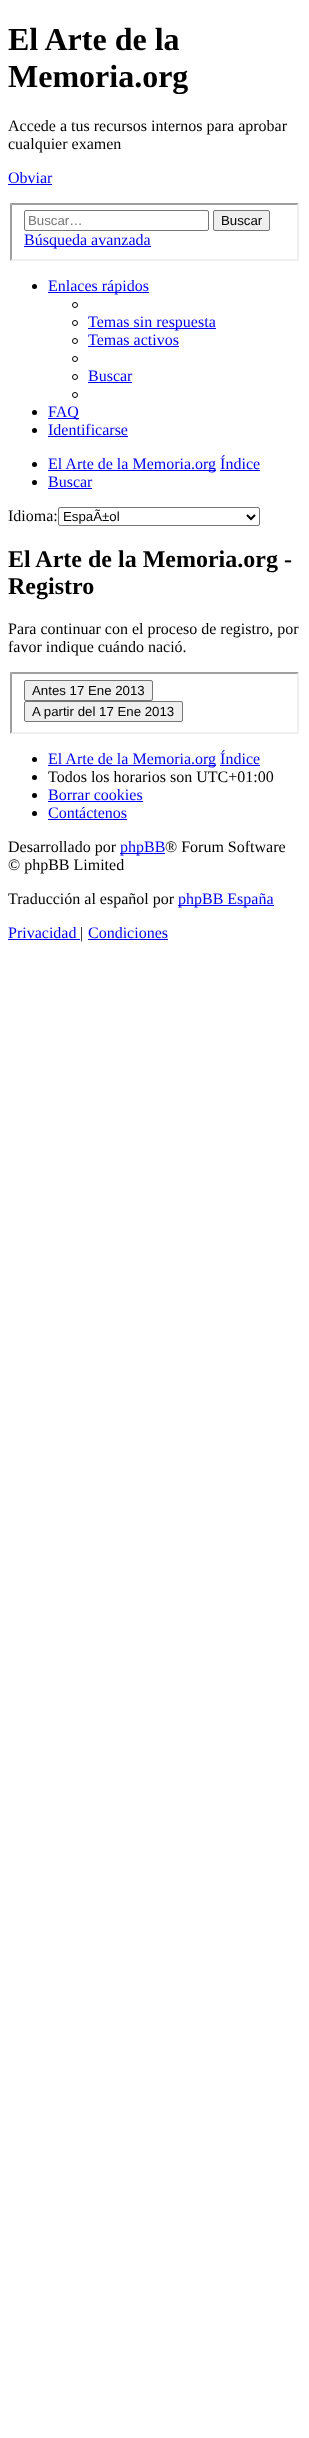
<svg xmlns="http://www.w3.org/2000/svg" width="309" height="2438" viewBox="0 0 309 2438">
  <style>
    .t1 { font: bold 32px Liberation Serif; fill: #000; }
    .t2 { font: 16px Liberation Serif; fill: #000; }
    .t3 { font: 16px Liberation Serif; fill: #00e; }
    .t4 { font: 13.25px Liberation Sans; fill: #757575; }
    .t5 { font: 13.25px Liberation Sans; fill: #000; }
    .t6 { font: bold 24px Liberation Serif; fill: #000; }
  </style>
  <rect width="100%" height="100%" fill="#fff"/>
  <text x="8" y="50" class="t1">El Arte de la</text>
  <text x="8" y="87" class="t1">Memoria.org</text>
  <text x="8" y="131" class="t2">Accede a tus recursos internos para aprobar</text>
  <text x="8" y="149" class="t2">cualquier examen</text>
  <text x="8" y="183" class="t3">Obviar</text>
  <rect x="8" y="184" width="44" height="1" fill="#00e"/>
  <path d="M10 203H299L297 205H12Z" fill="#9f9f9f"/>
  <path d="M299 203V261L297 259V205Z" fill="#efefef"/>
  <path d="M299 261H10L12 259H297Z" fill="#efefef"/>
  <path d="M10 261V203L12 205V259Z" fill="#9f9f9f"/>
  <rect x="24.5" y="210.5" width="184" height="20" rx="1.5" fill="none" stroke="#767676"/>
  <text x="28" y="225" class="t4">Buscar…</text>
  <rect x="213.5" y="210.5" width="56" height="20" rx="1.5" fill="#efefef" stroke="#767676"/>
  <text x="221" y="225" class="t5">Buscar</text>
  <rect x="24" y="246" width="127" height="1" fill="#00e"/>
  <text x="24" y="245" class="t3">Búsqueda avanzada</text>
  <circle cx="34.5" cy="286.5" r="2.5" fill="#000"/>
  <rect x="48" y="292" width="101" height="1" fill="#00e"/>
  <text x="48" y="291" class="t3">Enlaces rápidos</text>
  <circle cx="75" cy="305" r="2.5" fill="none" stroke="#000"/>
  <circle cx="75" cy="323" r="2.5" fill="none" stroke="#000"/>
  <rect x="88" y="328" width="128" height="1" fill="#00e"/>
  <text x="88" y="327" class="t3">Temas sin respuesta</text>
  <circle cx="75" cy="341" r="2.5" fill="none" stroke="#000"/>
  <text x="88" y="345" class="t3">Temas activos</text>
  <rect x="88" y="346" width="91" height="1" fill="#00e"/>
  <circle cx="75" cy="359" r="2.5" fill="none" stroke="#000"/>
  <circle cx="75" cy="377" r="2.5" fill="none" stroke="#000"/>
  <text x="88" y="381" class="t3">Buscar</text>
  <rect x="88" y="382" width="44" height="1" fill="#00e"/>
  <circle cx="75" cy="395" r="2.5" fill="none" stroke="#000"/>
  <circle cx="34.5" cy="412.5" r="2.5" fill="#000"/>
  <rect x="48" y="418" width="31" height="1" fill="#00e"/>
  <text x="48" y="417" class="t3">FAQ</text>
  <circle cx="34.5" cy="430.5" r="2.5" fill="#000"/>
  <text x="48" y="435" class="t3">Identificarse</text>
  <rect x="48" y="436" width="80" height="1" fill="#00e"/>
  <circle cx="34.5" cy="464.5" r="2.5" fill="#000"/>
  <rect x="48" y="470" width="168" height="1" fill="#00e"/>
  <text x="48" y="469" class="t3">El Arte de la Memoria.org Índice</text>
  <rect x="220" y="470" width="40" height="1" fill="#00e"/>
  <circle cx="34.5" cy="482.5" r="2.5" fill="#000"/>
  <text x="48" y="487" class="t3">Buscar</text>
  <rect x="48" y="488" width="44" height="1" fill="#00e"/>
  <text x="8" y="521" class="t2">Idioma:</text>
  <rect x="58.5" y="507.5" width="201" height="18" rx="1.5" fill="none" stroke="#767676"/>
  <path d="M247 515L251 519L255 515" fill="none" stroke="#000" stroke-width="2"/>
  <text x="63" y="521" class="t5">EspaÃ±ol</text>
  <text x="8" y="567" class="t6">El Arte de la Memoria.org -</text>
  <text x="8" y="594" class="t6">Registro</text>
  <text x="8" y="634" class="t2">Para continuar con el proceso de registro, por</text>
  <text x="8" y="652" class="t2">favor indique cuándo nació.</text>
  <path d="M10 672H299L297 674H12Z" fill="#9f9f9f"/>
  <path d="M299 672V734L297 732V674Z" fill="#efefef"/>
  <path d="M299 734H10L12 732H297Z" fill="#efefef"/>
  <path d="M10 734V672L12 674V732Z" fill="#9f9f9f"/>
  <rect x="24.5" y="680.5" width="128" height="20" rx="1.5" fill="#efefef" stroke="#767676"/>
  <text x="32" y="695" class="t5">Antes 17 Ene 2013</text>
  <rect x="24.5" y="701.5" width="158" height="20" rx="1.5" fill="#efefef" stroke="#767676"/>
  <text x="32" y="716" class="t5">A partir del 17 Ene 2013</text>
  <circle cx="34.5" cy="759.5" r="2.5" fill="#000"/>
  <rect x="48" y="765" width="168" height="1" fill="#00e"/>
  <text x="48" y="764" class="t3">El Arte de la Memoria.org Índice</text>
  <rect x="220" y="765" width="40" height="1" fill="#00e"/>
  <circle cx="34.5" cy="777.5" r="2.5" fill="#000"/>
  <text x="48" y="782" class="t2">Todos los horarios son UTC+01:00</text>
  <circle cx="34.5" cy="795.5" r="2.5" fill="#000"/>
  <text x="48" y="800" class="t3">Borrar cookies</text>
  <rect x="48" y="801" width="95" height="1" fill="#00e"/>
  <circle cx="34.5" cy="813.5" r="2.5" fill="#000"/>
  <text x="48" y="818" class="t3">Contáctenos</text>
  <rect x="48" y="819" width="79" height="1" fill="#00e"/>
  <text x="8" y="852" class="t2">Desarrollado por</text>
  <rect x="120" y="853" width="45" height="1" fill="#00e"/>
  <text x="120" y="852" class="t3">phpBB</text>
  <text x="165" y="852" class="t2">® Forum Software</text>
  <text x="8" y="870" class="t2">© phpBB Limited</text>
  <text x="8" y="904" class="t2">Traducción al español por</text>
  <rect x="178" y="905" width="96" height="1" fill="#00e"/>
  <text x="178" y="904" class="t3">phpBB España</text>
  <text x="8" y="938" class="t3">Privacidad</text>
  <rect x="8" y="939" width="72" height="1" fill="#00e"/>
  <text x="80" y="938" class="t2">|</text>
  <text x="88" y="938" class="t3">Condiciones</text>
  <rect x="88" y="939" width="80" height="1" fill="#00e"/>
</svg>
